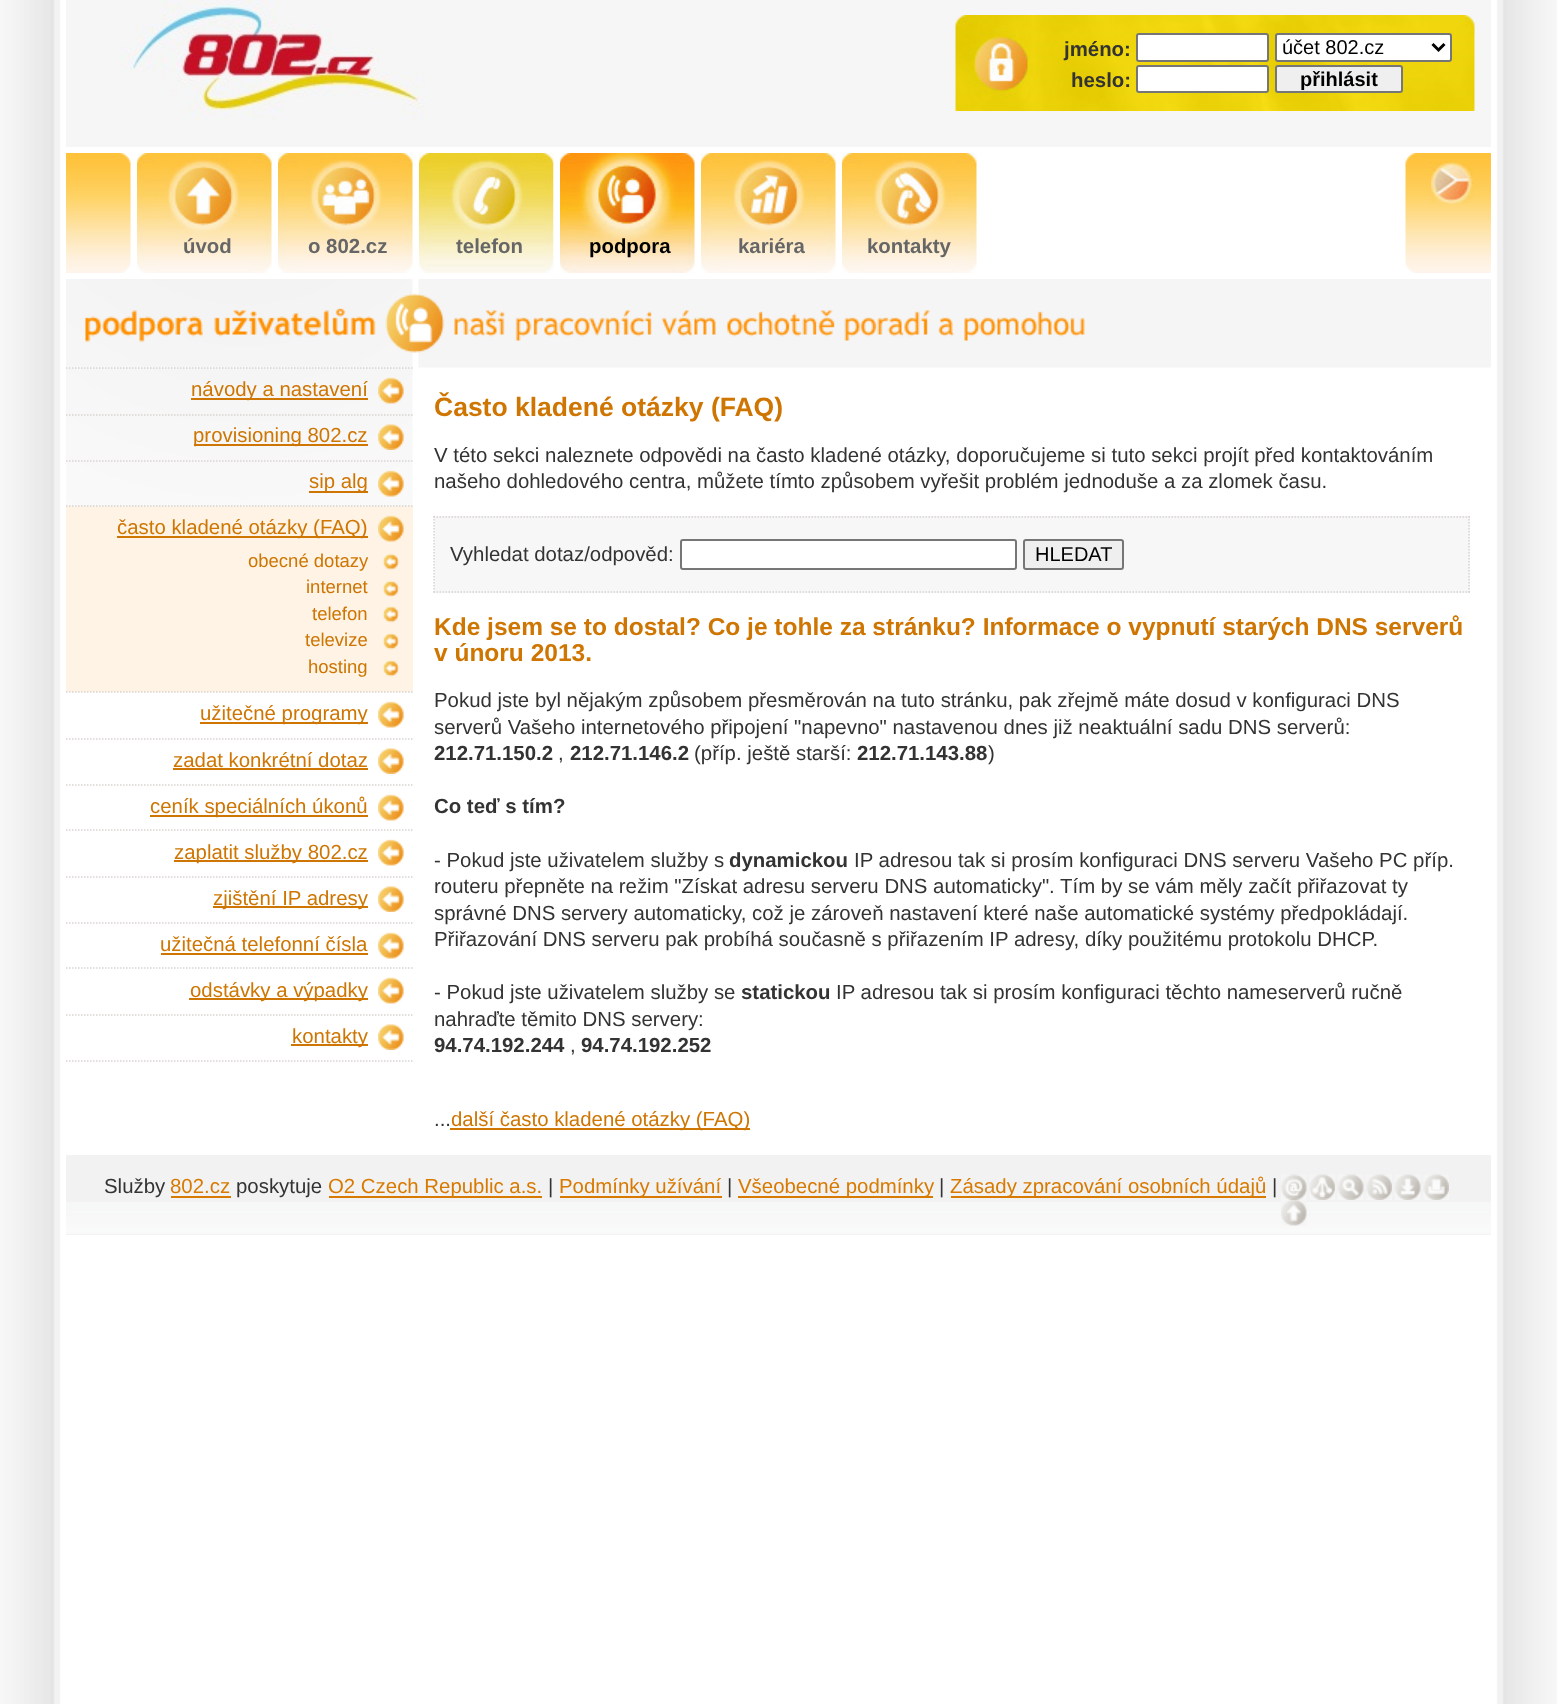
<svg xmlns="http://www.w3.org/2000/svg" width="1557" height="1704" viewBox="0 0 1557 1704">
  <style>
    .t1 { font: bold 20.4px Liberation Sans; fill: #333; }
    .t2 { font: 20px Liberation Sans; fill: #000; }
    .t3 { font: bold 20px Liberation Sans; fill: #000; }
    .t4 { font: bold 20.4px Liberation Sans; fill: #666; }
    .t5 { font: bold 20.4px Liberation Sans; fill: #000; }
    .t6 { font: 20.4px Liberation Sans; fill: #ce7502; }
    .t7 { font: 18.5px Liberation Sans; fill: #ce7502; }
    .t8 { font: bold 26.5px Liberation Sans; fill: #ce7502; }
    .t9 { font: 20.4px Liberation Sans; fill: #333; }
    .t10 { font: bold 24.5px Liberation Sans; fill: #ce7502; }
    .t11 { font: 20.4px Liberation Sans; fill: #d87a00; }
  </style>
  <defs>
    <clipPath id="clip1"><rect x="1278" y="68" width="122" height="22"/></clipPath>
  </defs>
  <rect width="100%" height="100%" fill="#fff"/>
  <image x="0" y="0" width="1557" height="1704" href="images/1.png"/>
  <rect x="66" y="0" width="1425" height="147" fill="#f6f6f6"/>
  <image x="120" y="0" width="306" height="120" href="images/2.png"/>
  <image x="955" y="15" width="520" height="96" href="images/3.png"/>
  <text x="1064" y="56" class="t1">jméno:</text>
  <rect x="1137" y="34" width="131" height="27" rx="2" fill="#fff" stroke="#767676" stroke-width="2"/>
  <rect x="1276" y="34" width="175" height="27" rx="2" fill="#fff" stroke="#767676" stroke-width="2"/>
  <path d="M1432.5 44L1438.5 50L1444.5 44" fill="none" stroke="#000" stroke-width="3"/>
  <text x="1282" y="54" class="t2">účet 802.cz</text>
  <text x="1071" y="87" class="t1">heslo:</text>
  <rect x="1137" y="66" width="131" height="26" rx="2" fill="#fff" stroke="#767676" stroke-width="2"/>
  <rect x="1276" y="66" width="126" height="26" rx="2" fill="#efefef" stroke="#767676" stroke-width="2"/>
  <g clip-path="url(#clip1)">
    <text x="1300" y="86" class="t3">přihlásit</text>
  </g>
  <image x="66" y="153" width="1425" height="120" href="images/5.png"/>
  <image x="1431" y="162" width="42" height="42" href="images/4.png"/>
  <image x="137" y="153" width="135" height="120" href="images/6.png"/>
  <text x="183" y="253" class="t4">úvod</text>
  <image x="278" y="153" width="135" height="120" href="images/7.png"/>
  <text x="308" y="253" class="t4">o 802.cz</text>
  <image x="419" y="153" width="135" height="120" href="images/8.png"/>
  <text x="456" y="253" class="t4">telefon</text>
  <image x="553" y="153" width="142" height="120" href="images/9.png"/>
  <rect x="554" y="153" width="6" height="120" fill="#fff"/>
  <text x="589" y="253" class="t5">podpora</text>
  <image x="701" y="153" width="135" height="120" href="images/10.png"/>
  <text x="738" y="253" class="t4">kariéra</text>
  <image x="842" y="153" width="135" height="120" href="images/11.png"/>
  <text x="867" y="253" class="t4">kontakty</text>
  <image x="66" y="279" width="1425" height="89" href="images/12.png"/>
  <image x="66" y="368" width="347" height="138" href="images/13.png"/>
  <path d="M66 1061H412.5" fill="none" stroke="#d7d4cf" stroke-width="1.5" stroke-dasharray="1.5 1.5"/>
  <image x="378" y="377" width="26" height="27" href="images/14.png"/>
  <path d="M66 368H412.5" fill="none" stroke="#d7d4cf" stroke-width="1.5" stroke-dasharray="1.5 1.5"/>
  <rect x="191" y="398" width="177" height="2" fill="#ce7502"/>
  <text x="191" y="396" class="t6">návody a nastavení</text>
  <image x="378" y="424" width="26" height="26" href="images/15.png"/>
  <path d="M66 415H412.5" fill="none" stroke="#d7d4cf" stroke-width="1.5" stroke-dasharray="1.5 1.5"/>
  <rect x="194" y="444" width="174" height="2" fill="#ce7502"/>
  <text x="193" y="442" class="t6">provisioning 802.cz</text>
  <image x="378" y="470" width="26" height="27" href="images/16.png"/>
  <path d="M66 461H412.5" fill="none" stroke="#d7d4cf" stroke-width="1.5" stroke-dasharray="1.5 1.5"/>
  <rect x="309" y="491" width="59" height="2" fill="#ce7502"/>
  <text x="309" y="488" class="t6">sip alg</text>
  <rect x="66" y="506" width="347" height="186" fill="#fef3e5"/>
  <image x="378" y="515" width="26" height="27" href="images/17.png"/>
  <path d="M66 506H412.5" fill="none" stroke="#d7d4cf" stroke-width="1.5" stroke-dasharray="1.5 1.5"/>
  <rect x="117" y="536" width="251" height="2" fill="#ce7502"/>
  <text x="117" y="534" class="t6">často kladené otázky (FAQ)</text>
  <image x="382" y="553" width="18" height="17" href="images/18.png"/>
  <text x="248" y="567" class="t7">obecné dotazy</text>
  <image x="382" y="580" width="18" height="17" href="images/18.png"/>
  <text x="306" y="593" class="t7">internet</text>
  <image x="382" y="606" width="18" height="17" href="images/19.png"/>
  <text x="312" y="620" class="t7">telefon</text>
  <image x="382" y="633" width="18" height="17" href="images/19.png"/>
  <text x="305" y="646" class="t7">televize</text>
  <image x="382" y="660" width="18" height="17" href="images/19.png"/>
  <text x="308" y="673" class="t7">hosting</text>
  <image x="378" y="701" width="26" height="27" href="images/20.png"/>
  <path d="M66 692H412.5" fill="none" stroke="#d7d4cf" stroke-width="1.5" stroke-dasharray="1.5 1.5"/>
  <rect x="200" y="722" width="168" height="2" fill="#ce7502"/>
  <text x="200" y="720" class="t6">užitečné programy</text>
  <image x="378" y="748" width="26" height="26" href="images/21.png"/>
  <path d="M66 739H412.5" fill="none" stroke="#d7d4cf" stroke-width="1.5" stroke-dasharray="1.5 1.5"/>
  <text x="173" y="767" class="t6">zadat konkrétní dotaz</text>
  <rect x="173" y="768" width="195" height="2" fill="#ce7502"/>
  <image x="378" y="794" width="26" height="27" href="images/20.png"/>
  <path d="M66 785H412.5" fill="none" stroke="#d7d4cf" stroke-width="1.5" stroke-dasharray="1.5 1.5"/>
  <rect x="150" y="815" width="218" height="2" fill="#ce7502"/>
  <text x="150" y="813" class="t6">ceník speciálních úkonů</text>
  <image x="378" y="839" width="26" height="27" href="images/20.png"/>
  <path d="M66 830H412.5" fill="none" stroke="#d7d4cf" stroke-width="1.5" stroke-dasharray="1.5 1.5"/>
  <rect x="174" y="860" width="194" height="2" fill="#ce7502"/>
  <text x="174" y="859" class="t6">zaplatit služby 802.cz</text>
  <image x="378" y="886" width="26" height="26" href="images/21.png"/>
  <path d="M66 877H412.5" fill="none" stroke="#d7d4cf" stroke-width="1.5" stroke-dasharray="1.5 1.5"/>
  <rect x="213" y="906" width="155" height="2" fill="#ce7502"/>
  <text x="213" y="905" class="t6">zjištění IP adresy</text>
  <image x="378" y="932" width="26" height="27" href="images/20.png"/>
  <path d="M66 923H412.5" fill="none" stroke="#d7d4cf" stroke-width="1.5" stroke-dasharray="1.5 1.5"/>
  <text x="160" y="951" class="t6">užitečná telefonní čísla</text>
  <rect x="161" y="953" width="207" height="2" fill="#ce7502"/>
  <image x="378" y="977" width="26" height="27" href="images/20.png"/>
  <path d="M66 968H412.5" fill="none" stroke="#d7d4cf" stroke-width="1.5" stroke-dasharray="1.5 1.5"/>
  <rect x="189" y="998" width="179" height="2" fill="#ce7502"/>
  <text x="190" y="997" class="t6">odstávky a výpadky</text>
  <image x="378" y="1024" width="26" height="26" href="images/21.png"/>
  <path d="M66 1015H412.5" fill="none" stroke="#d7d4cf" stroke-width="1.5" stroke-dasharray="1.5 1.5"/>
  <rect x="291" y="1044" width="77" height="2" fill="#ce7502"/>
  <text x="292" y="1043" class="t6">kontakty</text>
  <text x="434" y="416" class="t8">Často kladené otázky (FAQ)</text>
  <text x="434" y="462" class="t9">V této sekci naleznete odpovědi na často kladené otázky, doporučujeme si tuto sekci projít před kontaktováním</text>
  <text x="434" y="488" class="t9">našeho dohledového centra, můžete tímto způsobem vyřešit problém jednoduše a za zlomek času.</text>
  <rect x="434" y="516" width="1036" height="77" fill="#f7f7f7"/>
  <path d="M433.5 517H1470" fill="none" stroke="#d7d4cf" stroke-width="1.5" stroke-dasharray="1.5 1.5"/>
  <path d="M1469 516V592.5" fill="none" stroke="#d7d4cf" stroke-width="1.5" stroke-dasharray="1.5 1.5"/>
  <path d="M433.5 592H1470" fill="none" stroke="#d7d4cf" stroke-width="1.5" stroke-dasharray="1.5 1.5"/>
  <path d="M434 516V592.5" fill="none" stroke="#d7d4cf" stroke-width="1.5" stroke-dasharray="1.5 1.5"/>
  <text x="450" y="561" class="t9">Vyhledat dotaz/odpověd:</text>
  <rect x="681" y="540" width="335" height="29" rx="2" fill="#fff" stroke="#767676" stroke-width="2"/>
  <rect x="1024" y="540" width="99" height="29" rx="2" fill="#efefef" stroke="#767676" stroke-width="2"/>
  <text x="1035" y="561" class="t2">HLEDAT</text>
  <text x="434" y="635" class="t10">Kde jsem se to dostal? Co je tohle za stránku? Informace o vypnutí starých DNS serverů</text>
  <text x="434" y="661" class="t10">v únoru 2013.</text>
  <text x="434" y="707" class="t9">Pokud jste byl nějakým způsobem přesměrován na tuto stránku, pak zřejmě máte dosud v konfiguraci DNS</text>
  <text x="434" y="734" class="t9">serverů Vašeho internetového připojení "napevno" nastavenou dnes již neaktuální sadu DNS serverů:</text>
  <text x="434" y="760" class="t1">212.71.150.2</text>
  <text x="558" y="760" class="t9">,</text>
  <text x="570" y="760" class="t1">212.71.146.2</text>
  <text x="694" y="760" class="t9">(příp. ještě starší:</text>
  <text x="857" y="760" class="t1">212.71.143.88</text>
  <text x="988" y="760" class="t9">)</text>
  <text x="434" y="813" class="t1">Co teď s tím?</text>
  <text x="434" y="867" class="t9">- Pokud jste uživatelem služby s</text>
  <text x="729" y="867" class="t1">dynamickou</text>
  <text x="854" y="867" class="t9">IP adresou tak si prosím konfiguraci DNS serveru Vašeho PC příp.</text>
  <text x="434" y="893" class="t9">routeru přepněte na režim "Získat adresu serveru DNS automaticky". Tím by se vám měly začít přiřazovat ty</text>
  <text x="434" y="920" class="t9">správné DNS servery automaticky, což je zároveň nastavení které naše automatické systémy předpokládají.</text>
  <text x="434" y="946" class="t9">Přiřazování DNS serveru pak probíhá současně s přiřazením IP adresy, díky použitému protokolu DHCP.</text>
  <text x="434" y="999" class="t9">- Pokud jste uživatelem služby se</text>
  <text x="741" y="999" class="t1">statickou</text>
  <text x="836" y="999" class="t9">IP adresou tak si prosím konfiguraci těchto nameserverů ručně</text>
  <text x="434" y="1026" class="t9">nahraďte těmito DNS servery:</text>
  <text x="434" y="1052" class="t1">94.74.192.244</text>
  <text x="570" y="1052" class="t9">,</text>
  <text x="581" y="1052" class="t1">94.74.192.252</text>
  <text x="434" y="1126" class="t9">...</text>
  <rect x="450" y="1128" width="300" height="2" fill="#ce7502"/>
  <text x="451" y="1126" class="t6">další často kladené otázky (FAQ)</text>
  <rect x="66" y="1155" width="1425" height="80" fill="#f2f2f2"/>
  <image x="66" y="1202" width="1425" height="32" href="images/22.png"/>
  <text x="104" y="1193" class="t9">Služby</text>
  <text x="170" y="1193" class="t11">802.cz</text>
  <rect x="171" y="1196" width="60" height="2" fill="#d87a00"/>
  <text x="236" y="1193" class="t9">poskytuje</text>
  <rect x="329" y="1196" width="213" height="2" fill="#d87a00"/>
  <text x="328" y="1193" class="t11">O2 Czech Republic a.s.</text>
  <text x="548" y="1193" class="t9">|</text>
  <rect x="560" y="1196" width="162" height="2" fill="#d87a00"/>
  <text x="559" y="1193" class="t11">Podmínky užívání</text>
  <text x="727" y="1193" class="t9">|</text>
  <rect x="738" y="1196" width="195" height="2" fill="#d87a00"/>
  <text x="738" y="1193" class="t11">Všeobecné podmínky</text>
  <text x="939" y="1193" class="t9">|</text>
  <rect x="951" y="1196" width="315" height="2" fill="#d87a00"/>
  <text x="950" y="1193" class="t11">Zásady zpracování osobních údajů</text>
  <text x="1272" y="1193" class="t9">|</text>
  <image x="1281" y="1174" width="26" height="26" href="images/23.png"/>
  <image x="1309" y="1174" width="26" height="26" href="images/24.png"/>
  <image x="1338" y="1174" width="26" height="26" href="images/25.png"/>
  <image x="1366" y="1174" width="26" height="26" href="images/26.png"/>
  <image x="1395" y="1174" width="26" height="26" href="images/27.png"/>
  <image x="1423" y="1174" width="26" height="26" href="images/28.png"/>
  <image x="1281" y="1200" width="26" height="26" href="images/29.png"/>
</svg>
